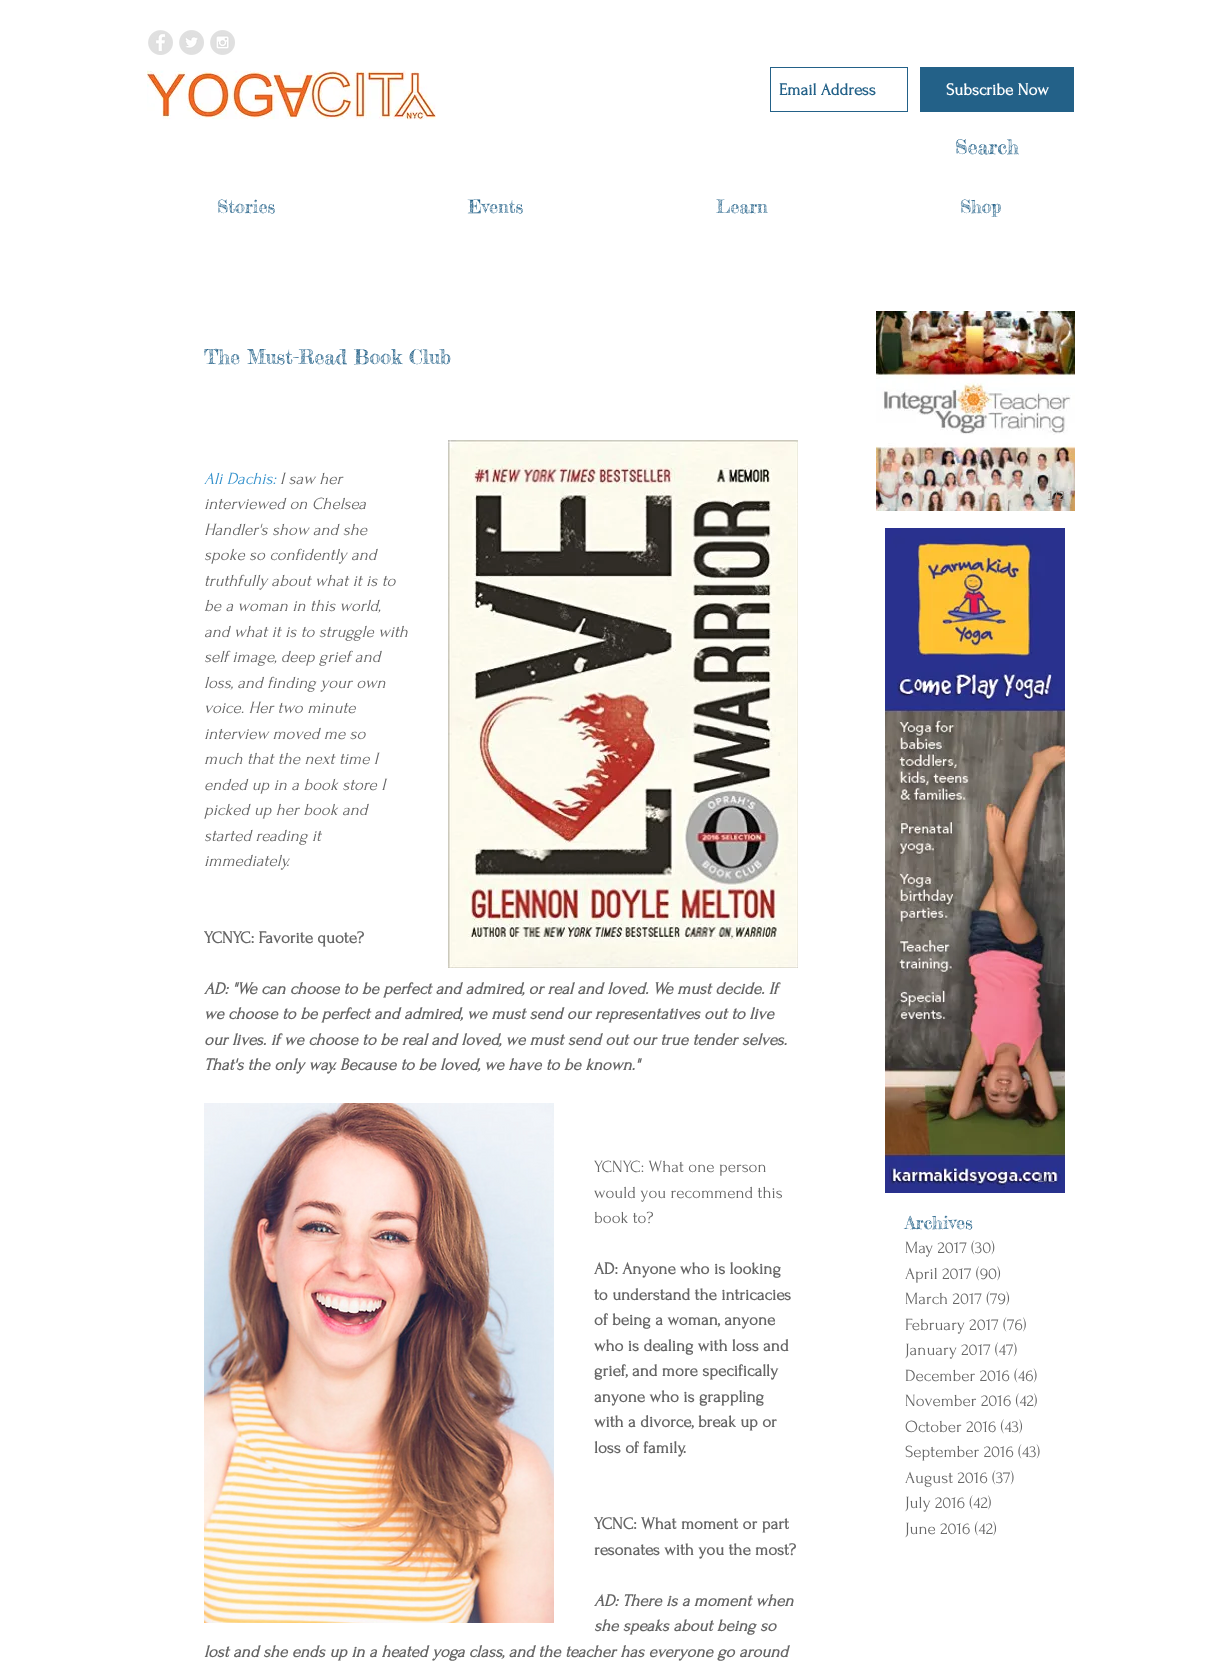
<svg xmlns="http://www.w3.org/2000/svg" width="1220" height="1665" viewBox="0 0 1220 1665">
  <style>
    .t1 { font: bold 17px Forum; fill: #236188; }
    .t2 { font: bold 17px Forum; fill: #fff; }
    .t3 { font: 20px Fredericka the Great; fill: #236188; }
    .t4 { font: 18px Fredericka the Great; fill: #236188; }
    .t5 { font: italic 17px Forum; fill: #3592cc; }
    .t6 { font: italic 17px Forum; fill: #666; }
    .t7 { font: bold 17px Forum; fill: #666; }
    .t8 { font: italic bold 17px Forum; fill: #666; }
    .t9 { font: 17px Forum; fill: #666; }
    .t10 { font: 13px Liberation Sans; fill: #9a8e87; }
    .t11 { font: 13px Liberation Sans; fill: #7c7da2; }
  </style>
  <rect width="100%" height="100%" fill="#fff"/>
  <image x="148" y="30" width="25" height="25" href="images/1.png"/>
  <image x="179" y="30" width="25" height="25" href="images/2.png"/>
  <image x="210" y="30" width="25" height="25" href="images/3.png"/>
  <image x="147" y="70" width="289" height="50" href="images/4.png"/>
  <rect x="770.5" y="67.5" width="137" height="44" fill="none" stroke="#236188"/>
  <text x="779" y="95" class="t1">Email Address</text>
  <rect x="920" y="67" width="154" height="45" fill="#236188"/>
  <text x="946" y="95" class="t2">Subscribe Now</text>
  <text x="955" y="154" class="t3">Search</text>
  <text x="217" y="213" class="t4">Stories</text>
  <text x="468" y="213" class="t4">Events</text>
  <text x="716" y="213" class="t4">Learn</text>
  <text x="960" y="213" class="t4">Shop</text>
  <text x="204" y="364" class="t3">The Must-Read Book Club</text>
  <text x="204" y="484" class="t5">Ali Dachis:</text>
  <text x="280" y="484" class="t6">I saw her</text>
  <text x="204" y="509" class="t6">interviewed on Chelsea</text>
  <text x="204" y="535" class="t6">Handler's show and she</text>
  <text x="204" y="560" class="t6">spoke so confidently and</text>
  <text x="204" y="586" class="t6">truthfully about what it is to</text>
  <text x="204" y="611" class="t6">be a woman in this world,</text>
  <text x="204" y="637" class="t6">and what it is to struggle with</text>
  <text x="204" y="662" class="t6">self image, deep grief and</text>
  <text x="204" y="688" class="t6">loss, and finding your own</text>
  <text x="204" y="713" class="t6">voice. Her two minute</text>
  <text x="204" y="739" class="t6">interview moved me so</text>
  <text x="204" y="764" class="t6">much that the next time I</text>
  <text x="204" y="790" class="t6">ended up in a book store I</text>
  <text x="204" y="815" class="t6">picked up her book and</text>
  <text x="204" y="841" class="t6">started reading it</text>
  <text x="204" y="866" class="t6">immediately.</text>
  <image x="448" y="440" width="350" height="528" href="images/5.png"/>
  <text x="204" y="943" class="t7">YCNYC: Favorite quote?</text>
  <text x="204" y="994" class="t8">AD: "We can choose to be perfect and admired, or real and loved. We must decide. If</text>
  <text x="204" y="1019" class="t8">we choose to be perfect and admired, we must send our representatives out to live</text>
  <text x="204" y="1045" class="t8">our lives. if we choose to be real and loved, we must send out our true tender selves.</text>
  <text x="204" y="1070" class="t8">That's the only way. Because to be loved, we have to be known."</text>
  <image x="204" y="1103" width="350" height="520" href="images/6.png"/>
  <text x="594" y="1172" class="t9">YCNYC: What one person</text>
  <text x="594" y="1198" class="t9">would you recommend this</text>
  <text x="594" y="1223" class="t9">book to?</text>
  <text x="594" y="1274" class="t7">AD: Anyone who is looking</text>
  <text x="594" y="1300" class="t7">to understand the intricacies</text>
  <text x="594" y="1325" class="t7">of being a woman, anyone</text>
  <text x="594" y="1351" class="t7">who is dealing with loss and</text>
  <text x="594" y="1376" class="t7">grief, and more specifically</text>
  <text x="594" y="1402" class="t7">anyone who is grappling</text>
  <text x="594" y="1427" class="t7">with a divorce, break up or</text>
  <text x="594" y="1453" class="t7">loss of family.</text>
  <text x="594" y="1529" class="t7">YCNC: What moment or part</text>
  <text x="594" y="1555" class="t7">resonates with you the most?</text>
  <text x="594" y="1606" class="t8">AD: There is a moment when</text>
  <text x="594" y="1631" class="t8">she speaks about being so</text>
  <text x="204" y="1657" class="t8">lost and she ends up in a heated yoga class, and the teacher has everyone go around</text>
  <image x="876" y="311" width="199" height="200" href="images/7.png"/>
  <text x="1047" y="500" class="t10">1/2</text>
  <image x="885" y="528" width="180" height="665" href="images/8.png"/>
  <text x="1037" y="1182" class="t11">1/1</text>
  <text x="905" y="1229" class="t4">Archives</text>
  <text x="905" y="1253" class="t9">May 2017 (30)</text>
  <text x="905" y="1279" class="t9">April 2017 (90)</text>
  <text x="905" y="1304" class="t9">March 2017 (79)</text>
  <text x="905" y="1330" class="t9">February 2017 (76)</text>
  <text x="905" y="1355" class="t9">January 2017 (47)</text>
  <text x="905" y="1381" class="t9">December 2016 (46)</text>
  <text x="905" y="1406" class="t9">November 2016 (42)</text>
  <text x="905" y="1432" class="t9">October 2016 (43)</text>
  <text x="905" y="1457" class="t9">September 2016 (43)</text>
  <text x="905" y="1483" class="t9">August 2016 (37)</text>
  <text x="905" y="1508" class="t9">July 2016 (42)</text>
  <text x="905" y="1534" class="t9">June 2016 (42)</text>
</svg>
